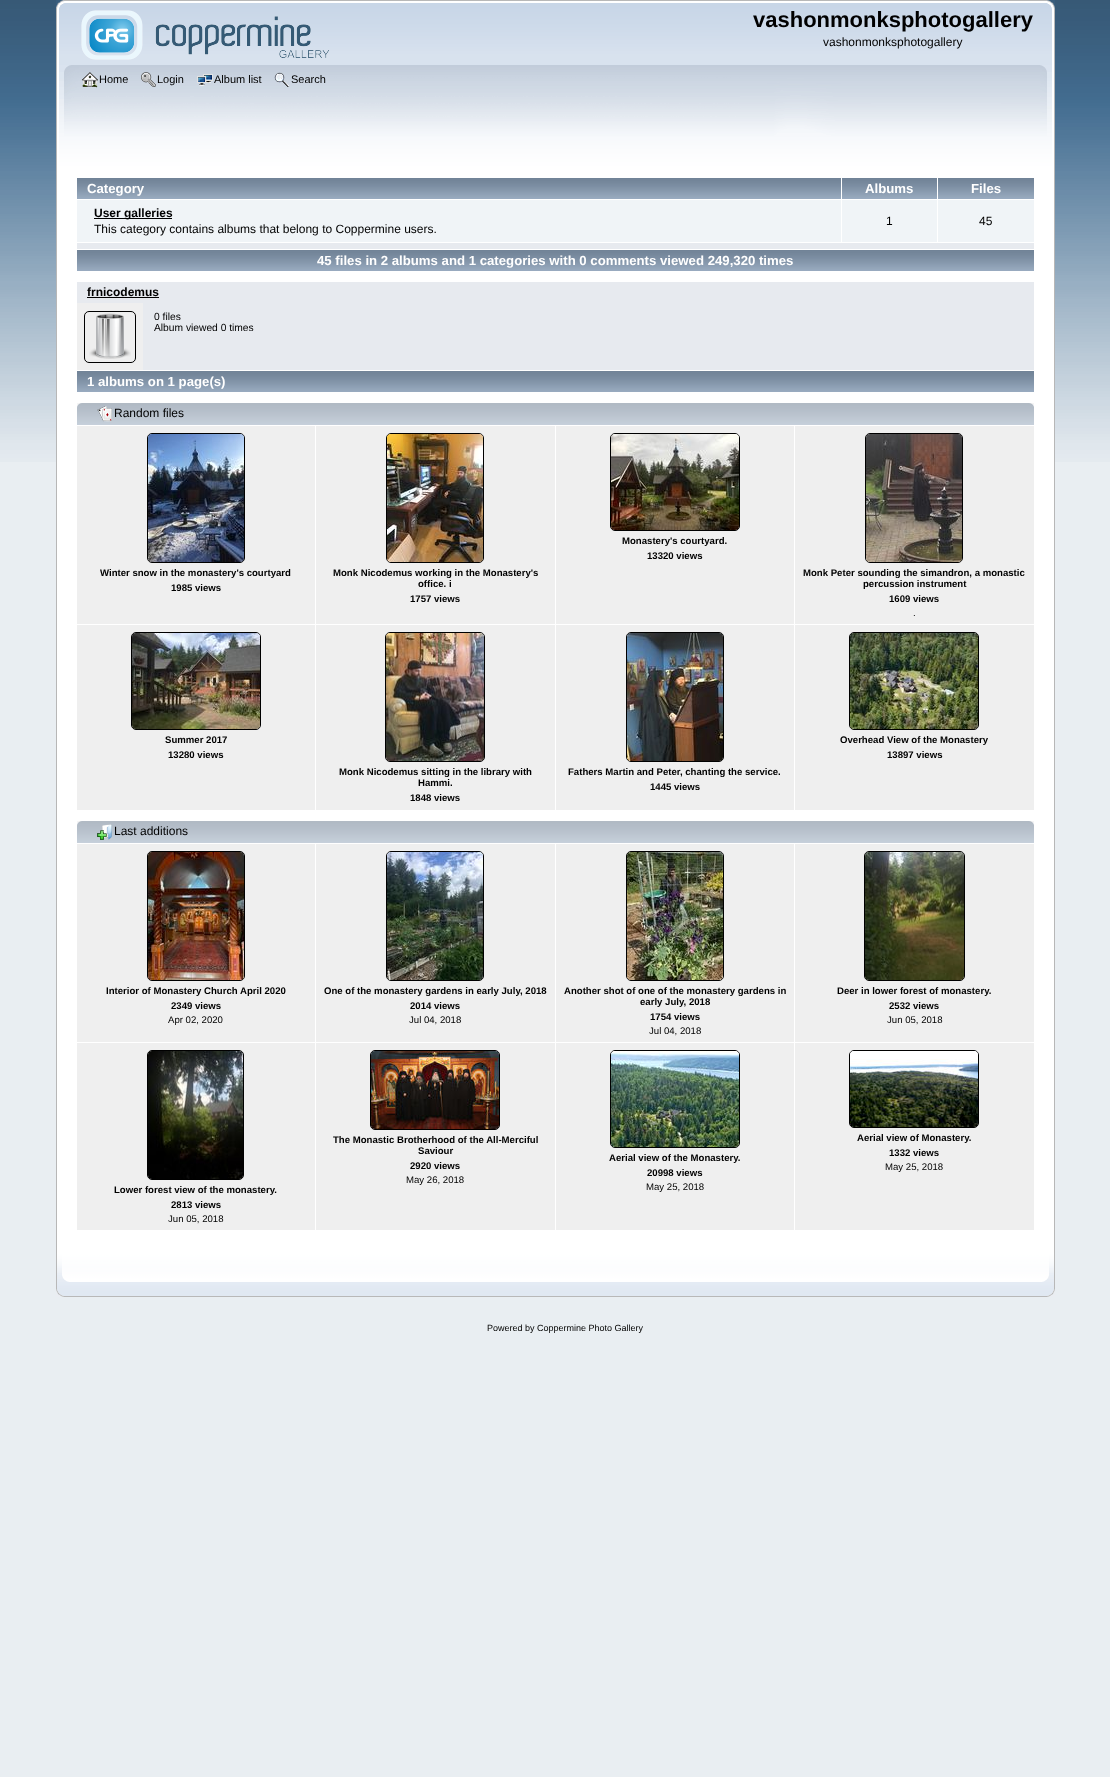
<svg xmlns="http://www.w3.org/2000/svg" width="1110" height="1777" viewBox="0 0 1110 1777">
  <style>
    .t1 { font: bold 22px Liberation Sans; fill: #000; }
    .t2 { font: 12px Liberation Sans; fill: #000; }
    .t3 { font: 11px Liberation Sans; fill: #000; }
    .t4 { font: bold 13.2px Liberation Sans; fill: #fff; }
    .t5 { font: bold 12px Liberation Sans; fill: #000; }
    .t6 { font: 10.25px Liberation Sans; fill: #000; }
    .t7 { font: bold 9.6px Liberation Sans; fill: #000; }
    .t8 { font: 9.6px Liberation Sans; fill: #000; }
    .t9 { font: 9px Liberation Sans; fill: #000; }
  </style>
  <rect width="100%" height="100%" fill="#e9eef2"/>
  <image x="0" y="0" width="1110" height="462" href="images/1.png"/>
  <image x="56" y="0" width="991" height="65" href="images/2.png"/>
  <image x="1047" y="0" width="8" height="65" href="images/3.png"/>
  <image x="81" y="10" width="248" height="50" href="images/4.png"/>
  <text x="753" y="27" class="t1">vashonmonksphotogallery</text>
  <text x="823" y="46" class="t2">vashonmonksphotogallery</text>
  <image x="56" y="65" width="984" height="110" href="images/5.png"/>
  <image x="1040" y="65" width="15" height="110" href="images/6.png"/>
  <image x="82" y="72" width="16" height="16" href="images/7.png"/>
  <text x="99" y="83" class="t3">Home</text>
  <image x="141" y="72" width="15" height="15" href="images/8.png"/>
  <text x="157" y="83" class="t3">Login</text>
  <image x="197" y="74" width="16" height="12" href="images/9.png"/>
  <text x="214" y="83" class="t3">Album list</text>
  <image x="274" y="72" width="16" height="15" href="images/10.png"/>
  <text x="291" y="83" class="t3">Search</text>
  <rect x="57" y="175" width="997" height="1078" fill="#fff"/>
  <rect x="56" y="175" width="1" height="1078" fill="#b7b7b7"/>
  <rect x="1054" y="175" width="1" height="1078" fill="#b7b7b7"/>
  <image x="77" y="178" width="764" height="21" href="images/11.png"/>
  <text x="87" y="193" class="t4">Category</text>
  <image x="842" y="178" width="95" height="21" href="images/12.png"/>
  <text x="865" y="193" class="t4">Albums</text>
  <image x="938" y="178" width="96" height="21" href="images/13.png"/>
  <text x="971" y="193" class="t4">Files</text>
  <rect x="77" y="200" width="764" height="42" fill="#f0f4f7"/>
  <rect x="94" y="218" width="78" height="1" fill="#000"/>
  <text x="94" y="217" class="t5">User galleries</text>
  <text x="94" y="233" class="t2">This category contains albums that belong to Coppermine users.</text>
  <rect x="842" y="200" width="95" height="42" fill="#f0f4f7"/>
  <text x="886" y="225" class="t2">1</text>
  <rect x="938" y="200" width="96" height="42" fill="#f0f4f7"/>
  <text x="979" y="225" class="t2">45</text>
  <rect x="77" y="243" width="957" height="6" fill="#e7eaef"/>
  <image x="77" y="250" width="957" height="21" href="images/14.png"/>
  <text x="317" y="265" class="t4">45 files in 2 albums and 1 categories with 0 comments viewed 249,320 times</text>
  <rect x="77" y="282" width="957" height="88" fill="#e7eaef"/>
  <text x="87" y="296" class="t5">frnicodemus</text>
  <rect x="87" y="297" width="72" height="1" fill="#000"/>
  <rect x="77" y="303" width="66" height="67" fill="#efefef"/>
  <rect x="84.5" y="311.5" width="51" height="51" rx="4.5" fill="none" stroke="#000"/>
  <image x="89" y="313" width="42" height="46" href="images/15.png"/>
  <text x="154" y="320" class="t6">0 files</text>
  <text x="154" y="331" class="t6">Album viewed 0 times</text>
  <image x="77" y="371" width="957" height="21" href="images/14.png"/>
  <text x="87" y="386" class="t4">1 albums on 1 page(s)</text>
  <image x="77" y="403" width="957" height="22" href="images/16.png"/>
  <image x="1029" y="403" width="5" height="4" href="images/17.png"/>
  <image x="97" y="406" width="15" height="16" href="images/18.png"/>
  <text x="114" y="417" class="t2">Random files</text>
  <rect x="556" y="426" width="238" height="198" fill="#efefef"/>
  <rect x="610.5" y="433.5" width="129" height="97" rx="4.5" fill="none" stroke="#000"/>
  <image x="611" y="434" width="128" height="96" href="images/19.png"/>
  <text x="622" y="544" class="t7">Monastery's courtyard.</text>
  <text x="647" y="559" class="t7">13320 views</text>
  <rect x="77" y="426" width="238" height="198" fill="#efefef"/>
  <rect x="147.5" y="433.5" width="97" height="129" rx="4.5" fill="none" stroke="#000"/>
  <image x="148" y="434" width="96" height="128" href="images/20.png"/>
  <text x="100" y="576" class="t7">Winter snow in the monastery's courtyard</text>
  <text x="171" y="591" class="t7">1985 views</text>
  <rect x="316" y="426" width="239" height="198" fill="#efefef"/>
  <rect x="386.5" y="433.5" width="97" height="129" rx="4.5" fill="none" stroke="#000"/>
  <image x="387" y="434" width="96" height="128" href="images/21.png"/>
  <text x="333" y="576" class="t7">Monk Nicodemus working in the Monastery's</text>
  <text x="418" y="587" class="t7">office. i</text>
  <text x="410" y="602" class="t7">1757 views</text>
  <rect x="795" y="426" width="239" height="198" fill="#efefef"/>
  <rect x="865.5" y="433.5" width="97" height="129" rx="4.5" fill="none" stroke="#000"/>
  <image x="866" y="434" width="96" height="128" href="images/22.png"/>
  <text x="803" y="576" class="t7">Monk Peter sounding the simandron, a monastic</text>
  <text x="863" y="587" class="t7">percussion instrument</text>
  <text x="889" y="602" class="t7">1609 views</text>
  <text x="913" y="616" class="t8">.</text>
  <rect x="77" y="625" width="238" height="185" fill="#efefef"/>
  <rect x="131.5" y="632.5" width="129" height="97" rx="4.5" fill="none" stroke="#000"/>
  <image x="132" y="633" width="128" height="96" href="images/23.png"/>
  <text x="165" y="743" class="t7">Summer 2017</text>
  <text x="168" y="758" class="t7">13280 views</text>
  <rect x="795" y="625" width="239" height="185" fill="#efefef"/>
  <rect x="849.5" y="632.5" width="129" height="97" rx="4.5" fill="none" stroke="#000"/>
  <image x="850" y="633" width="128" height="96" href="images/24.png"/>
  <text x="840" y="743" class="t7">Overhead View of the Monastery</text>
  <text x="887" y="758" class="t7">13897 views</text>
  <rect x="316" y="625" width="239" height="185" fill="#efefef"/>
  <rect x="385.5" y="632.5" width="99" height="129" rx="4.5" fill="none" stroke="#000"/>
  <image x="386" y="633" width="98" height="128" href="images/25.png"/>
  <text x="339" y="775" class="t7">Monk Nicodemus sitting in the library with</text>
  <text x="418" y="786" class="t7">Hammi.</text>
  <text x="410" y="801" class="t7">1848 views</text>
  <rect x="556" y="625" width="238" height="185" fill="#efefef"/>
  <rect x="626.5" y="632.5" width="97" height="129" rx="4.5" fill="none" stroke="#000"/>
  <image x="627" y="633" width="96" height="128" href="images/26.png"/>
  <text x="568" y="775" class="t7">Fathers Martin and Peter, chanting the service.</text>
  <text x="650" y="790" class="t7">1445 views</text>
  <image x="77" y="821" width="957" height="22" href="images/16.png"/>
  <image x="1029" y="821" width="5" height="4" href="images/17.png"/>
  <image x="97" y="824" width="15" height="16" href="images/27.png"/>
  <text x="114" y="835" class="t2">Last additions</text>
  <rect x="77" y="844" width="238" height="198" fill="#efefef"/>
  <rect x="147.5" y="851.5" width="97" height="129" rx="4.5" fill="none" stroke="#000"/>
  <image x="148" y="852" width="96" height="128" href="images/28.png"/>
  <text x="106" y="994" class="t7">Interior of Monastery Church April 2020</text>
  <text x="171" y="1009" class="t7">2349 views</text>
  <text x="168" y="1023" class="t8">Apr 02, 2020</text>
  <rect x="316" y="844" width="239" height="198" fill="#efefef"/>
  <rect x="386.5" y="851.5" width="97" height="129" rx="4.5" fill="none" stroke="#000"/>
  <image x="387" y="852" width="96" height="128" href="images/29.png"/>
  <text x="324" y="994" class="t7">One of the monastery gardens in early July, 2018</text>
  <text x="410" y="1009" class="t7">2014 views</text>
  <text x="409" y="1023" class="t8">Jul 04, 2018</text>
  <rect x="556" y="844" width="238" height="198" fill="#efefef"/>
  <rect x="626.5" y="851.5" width="97" height="129" rx="4.5" fill="none" stroke="#000"/>
  <image x="627" y="852" width="96" height="128" href="images/30.png"/>
  <text x="564" y="994" class="t7">Another shot of one of the monastery gardens in</text>
  <text x="640" y="1005" class="t7">early July, 2018</text>
  <text x="650" y="1020" class="t7">1754 views</text>
  <text x="649" y="1034" class="t8">Jul 04, 2018</text>
  <rect x="795" y="844" width="239" height="198" fill="#efefef"/>
  <rect x="864.5" y="851.5" width="100" height="129" rx="4.5" fill="none" stroke="#000"/>
  <image x="865" y="852" width="99" height="128" href="images/31.png"/>
  <text x="837" y="994" class="t7">Deer in lower forest of monastery.</text>
  <text x="889" y="1009" class="t7">2532 views</text>
  <text x="887" y="1023" class="t8">Jun 05, 2018</text>
  <rect x="316" y="1043" width="239" height="187" fill="#efefef"/>
  <rect x="370.5" y="1050.5" width="129" height="79" rx="4.5" fill="none" stroke="#000"/>
  <image x="371" y="1051" width="128" height="78" href="images/32.png"/>
  <text x="333" y="1143" class="t7">The Monastic Brotherhood of the All-Merciful</text>
  <text x="418" y="1154" class="t7">Saviour</text>
  <text x="410" y="1169" class="t7">2920 views</text>
  <text x="406" y="1183" class="t8">May 26, 2018</text>
  <rect x="556" y="1043" width="238" height="187" fill="#efefef"/>
  <rect x="610.5" y="1050.5" width="129" height="97" rx="4.5" fill="none" stroke="#000"/>
  <image x="611" y="1051" width="128" height="96" href="images/33.png"/>
  <text x="609" y="1161" class="t7">Aerial view of the Monastery.</text>
  <text x="647" y="1176" class="t7">20998 views</text>
  <text x="646" y="1190" class="t8">May 25, 2018</text>
  <rect x="795" y="1043" width="239" height="187" fill="#efefef"/>
  <rect x="849.5" y="1050.5" width="129" height="77" rx="4.5" fill="none" stroke="#000"/>
  <image x="850" y="1051" width="128" height="76" href="images/34.png"/>
  <text x="857" y="1141" class="t7">Aerial view of Monastery.</text>
  <text x="889" y="1156" class="t7">1332 views</text>
  <text x="885" y="1170" class="t8">May 25, 2018</text>
  <rect x="77" y="1043" width="238" height="187" fill="#efefef"/>
  <rect x="147.5" y="1050.5" width="96" height="129" rx="4.5" fill="none" stroke="#000"/>
  <image x="148" y="1051" width="95" height="128" href="images/35.png"/>
  <text x="114" y="1193" class="t7">Lower forest view of the monastery.</text>
  <text x="171" y="1208" class="t7">2813 views</text>
  <text x="168" y="1222" class="t8">Jun 05, 2018</text>
  <image x="56" y="1253" width="986" height="44" href="images/36.png"/>
  <image x="1042" y="1253" width="13" height="44" href="images/37.png"/>
  <text x="487" y="1331" class="t9">Powered by Coppermine Photo Gallery</text>
</svg>
